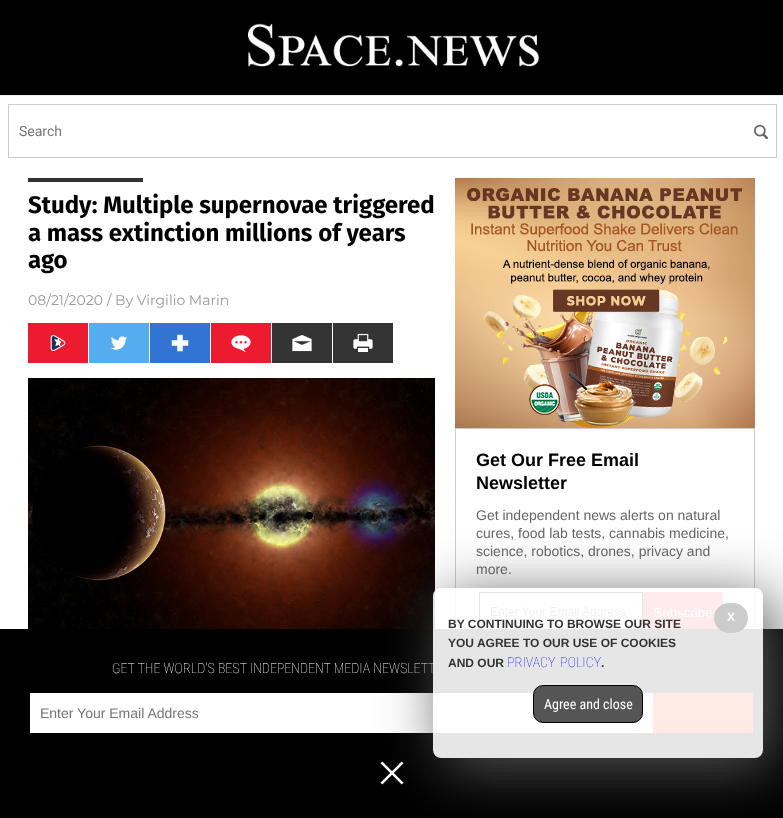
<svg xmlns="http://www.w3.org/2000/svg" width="783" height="818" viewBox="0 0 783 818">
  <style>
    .t1 { font: 14px Roboto; fill: #757575; }
    .t2 { font: bold 24px Fira Sans; fill: #000; }
    .t3 { font: 14px Montserrat; fill: #999; }
    .t4 { font: bold 18px Liberation Sans; fill: #000; }
    .t5 { font: 14px Liberation Sans; fill: #666; }
    .t6 { font: 100 14px Roboto Condensed; fill: #fff; }
    .t7 { font: 14px Liberation Sans; fill: #757575; }
    .t8 { font: bold 12px Liberation Sans; fill: #fff; }
    .t9 { font: bold 12px Liberation Sans; fill: #333; }
    .t10 { font: 100 14px Roboto Condensed; fill: #00f; }
    .t11 { font: 14px Roboto Condensed; fill: #fff; }
  </style>
  <defs>
    <clipPath id="clip1"><path d="M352 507H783V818H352ZM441 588H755C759.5 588 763 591.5 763 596V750C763 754.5 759.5 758 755 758H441C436.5 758 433 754.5 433 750V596C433 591.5 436.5 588 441 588Z" clip-rule="evenodd"/></clipPath>
  </defs>
  <rect width="100%" height="100%" fill="#000"/>
  <image x="248" y="23" width="292" height="44" href="images/1.png"/>
  <rect x="0" y="96" width="783" height="533" fill="#fff"/>
  <rect x="0" y="95" width="783" height="1" fill="#ececec"/>
  <rect x="8.5" y="104.5" width="768" height="53" fill="none" stroke="#ccc"/>
  <text x="19" y="136" class="t1">Search</text>
  <image x="754" y="124" width="14" height="16" href="images/2.png"/>
  <rect x="28" y="178" width="115" height="4" fill="#333"/>
  <text x="28" y="213" class="t2">Study: Multiple supernovae triggered</text>
  <text x="28" y="241" class="t2">a mass extinction millions of years</text>
  <text x="28" y="268" class="t2">ago</text>
  <text x="28" y="305" class="t3">08/21/2020 / By Virgilio Marin</text>
  <rect x="28" y="323" width="60" height="40" fill="#ed1b2f"/>
  <image x="50" y="335" width="16" height="16" href="images/3.png"/>
  <rect x="89" y="323" width="60" height="40" fill="#55acef"/>
  <image x="111" y="336" width="16" height="14" href="images/4.png"/>
  <rect x="150" y="323" width="60" height="40" fill="#3274d1"/>
  <image x="171" y="334" width="18" height="18" href="images/5.png"/>
  <rect x="211" y="323" width="60" height="40" fill="#ed1b2f"/>
  <image x="231" y="335" width="20" height="17" href="images/6.png"/>
  <rect x="272" y="323" width="60" height="40" fill="#343434"/>
  <image x="292" y="335" width="20" height="17" href="images/7.png"/>
  <rect x="333" y="323" width="60" height="40" fill="#343434"/>
  <image x="353" y="333" width="20" height="19" href="images/8.png"/>
  <image x="28" y="378" width="407" height="251" href="images/9.png"/>
  <image x="455" y="178" width="300" height="250" href="images/10.png"/>
  <rect x="455.5" y="428.5" width="299" height="279" fill="none" stroke="#ccc"/>
  <text x="476" y="466" class="t4">Get Our Free Email</text>
  <text x="476" y="489" class="t4">Newsletter</text>
  <text x="476" y="520" class="t5">Get independent news alerts on natural</text>
  <text x="476" y="538" class="t5">cures, food lab tests, cannabis medicine,</text>
  <text x="476" y="556" class="t5">science, robotics, drones, privacy and</text>
  <text x="476" y="574" class="t5">more.</text>
  <image x="479" y="592" width="244" height="37" href="images/11.png"/>
  <rect x="455" y="629" width="300" height="79" fill="#000"/>
  <text x="112" y="673" class="t6">GET THE WORLD'S BEST INDEPENDENT MEDIA NEWSLETT</text>
  <rect x="30" y="693" width="623" height="40" fill="#fff"/>
  <text x="40" y="718" class="t7">Enter Your Email Address</text>
  <rect x="653" y="693" width="100" height="40" fill="#f30"/>
  <image x="380" y="761" width="24" height="24" href="images/12.png"/>
  <g clip-path="url(#clip1)">
    <rect x="443" y="598" width="330" height="170" rx="8" fill="#555" filter="blur(30px)"/>
  </g>
  <rect x="433" y="588" width="330" height="170" rx="8" fill="#ffffffe6"/>
  <rect x="714" y="603" width="34" height="30" rx="15" fill="#ccc"/>
  <text x="727" y="621" class="t8">X</text>
  <text x="448" y="628" class="t9">BY CONTINUING TO BROWSE OUR SITE</text>
  <text x="448" y="647" class="t9">YOU AGREE TO OUR USE OF COOKIES</text>
  <text x="448" y="667" class="t9">AND OUR</text>
  <text x="507" y="667" word-spacing="2" class="t10">PRIVACY POLICY</text>
  <text x="601" y="667" class="t9">.</text>
  <rect x="533.5" y="685.5" width="109" height="37" rx="9.5" fill="#555" stroke="#000"/>
  <text x="544" y="709" class="t11">Agree and close</text>
</svg>
